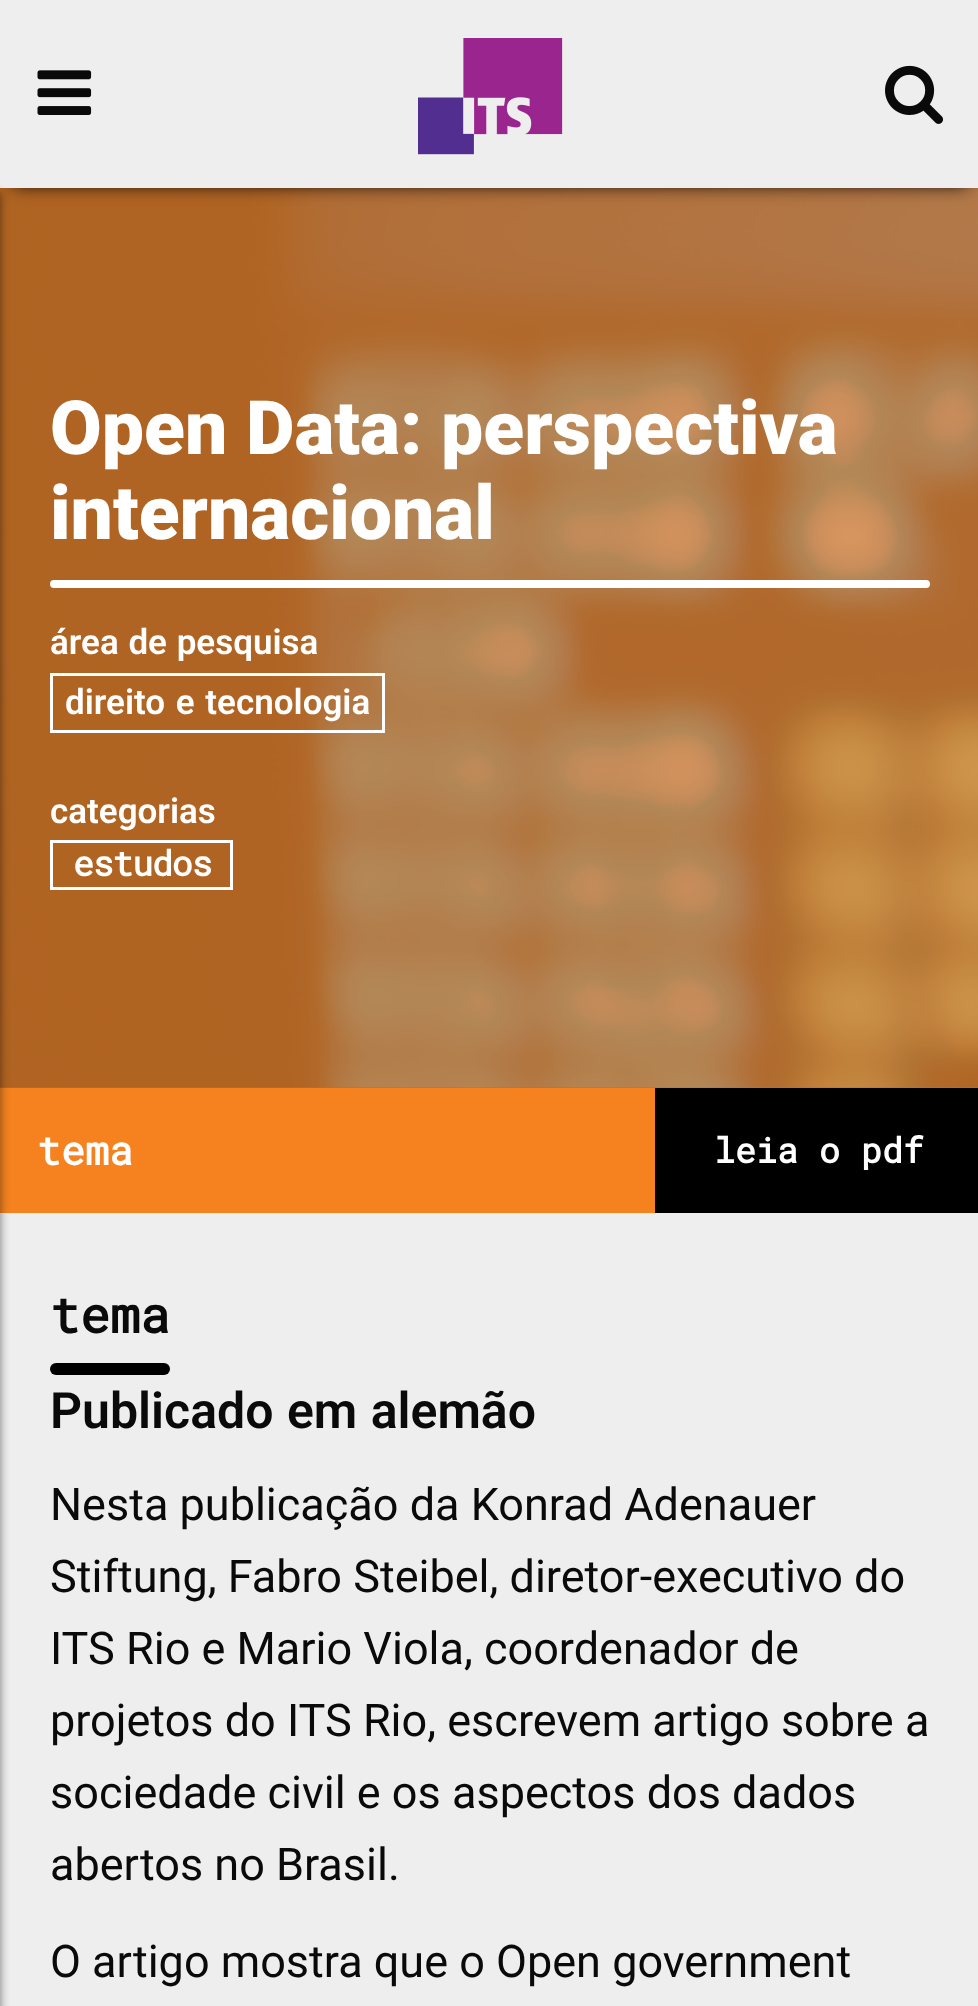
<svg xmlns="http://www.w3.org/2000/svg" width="978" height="2006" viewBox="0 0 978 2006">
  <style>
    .t1 { font: 900 75px Roboto; fill: #fff; }
    .t2 { font: 600 35px Roboto; fill: #fff; }
    .t3 { font: bold 35px Roboto Mono; letter-spacing: -1.25px; fill: #fff; }
    .t4 { font: bold 40px Roboto Mono; fill: #fff; }
    .t5 { font: bold 35px Roboto Mono; fill: #fff; }
    .t6 { font: bold 50px Roboto Mono; fill: #0a0a0a; }
    .t7 { font: 600 50px Roboto; fill: #0a0a0a; }
    .t8 { font: 45px Roboto; fill: #0a0a0a; }
  </style>
  <rect width="100%" height="100%" fill="#eee"/>
  <rect x="0" y="1087" width="978" height="1" fill="#ce643e"/>
  <image x="0" y="188" width="978" height="900" href="images/4.png"/>
  <rect x="13" y="23" width="955" height="162" fill="#000" filter="blur(9px)"/>
  <rect x="0" y="2" width="978" height="186" fill="#eee"/>
  <image x="37" y="70" width="55" height="45" href="images/1.png"/>
  <image x="418" y="38" width="145" height="117" href="images/2.png"/>
  <image x="885" y="65" width="58" height="59" href="images/3.png"/>
  <rect x="0" y="1088" width="655" height="125" fill="#f5821f"/>
  <rect x="-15" y="193" width="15" height="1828" fill="#00000080" filter="blur(5px)"/>
  <text x="50" y="454" class="t1">Open Data: perspectiva</text>
  <text x="50" y="539" class="t1">internacional</text>
  <rect x="50" y="580" width="880" height="8" rx="4" fill="#fff"/>
  <text x="50" y="654" word-spacing="1" class="t2">área de pesquisa</text>
  <rect x="51.5" y="674.5" width="332" height="57" fill="none" stroke="#fff" stroke-width="3"/>
  <text x="65" y="714" word-spacing="2" class="t2">direito e tecnologia</text>
  <text x="50" y="823" class="t2">categorias</text>
  <rect x="51.5" y="841.5" width="180" height="47" fill="none" stroke="#fff" stroke-width="3"/>
  <text x="73" y="876" class="t3">estudos</text>
  <text x="37" y="1165" class="t4">tema</text>
  <rect x="655" y="1088" width="323" height="125" fill="#000"/>
  <text x="714" y="1163" class="t5">leia o pdf</text>
  <text x="50" y="1333" class="t6">tema</text>
  <rect x="50" y="1363" width="120" height="12" rx="6" fill="#000"/>
  <text x="50" y="1428" word-spacing="1" class="t7">Publicado em alemão</text>
  <text x="50" y="1520" class="t8">Nesta publicação da Konrad Adenauer</text>
  <text x="50" y="1592" class="t8">Stiftung, Fabro Steibel, diretor-executivo do</text>
  <text x="50" y="1664" class="t8">ITS Rio e Mario Viola, coordenador de</text>
  <text x="50" y="1736" class="t8">projetos do ITS Rio, escrevem artigo sobre a</text>
  <text x="50" y="1808" class="t8">sociedade civil e os aspectos dos dados</text>
  <text x="50" y="1880" class="t8">abertos no Brasil.</text>
  <text x="50" y="1977" class="t8">O artigo mostra que o Open government</text>
</svg>
